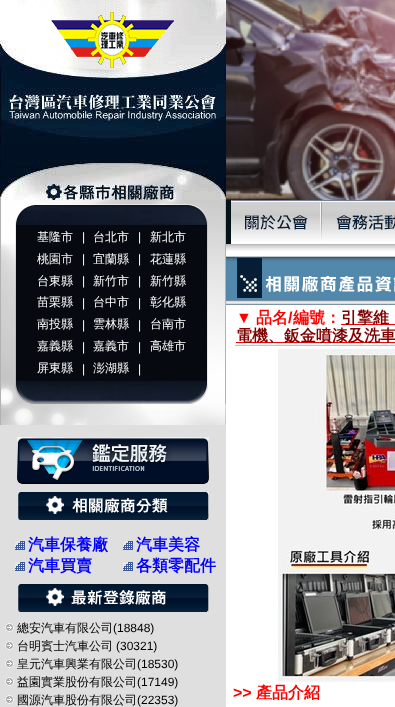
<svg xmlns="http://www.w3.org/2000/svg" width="395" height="707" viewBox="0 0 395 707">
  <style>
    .t1 { font: 500 12px WenQuanYi Zen Hei; fill: #fff; }
    .t2 { font: 12px Liberation Sans; fill: #fff; }
    .t3 { font: 500 12px WenQuanYi Zen Hei; fill: #eee; }
    .t4 { font: bold 16px WenQuanYi Zen Hei; fill: #00f; }
    .t5 { font: 500 12px WenQuanYi Zen Hei; fill: #000; }
    .t6 { font: 12px Liberation Sans; fill: #000; }
    .t7 { font: bold 16px Liberation Sans; fill: #f00; }
    .t8 { font: bold 16px WenQuanYi Zen Hei; fill: #f00; }
    .t9 { font: bold 16px WenQuanYi Zen Hei; fill: #800000; }
  </style>
  <rect width="100%" height="100%" fill="#dfdfdf"/>
  <image x="0" y="0" width="226" height="200" href="images/1.png"/>
  <image x="226" y="0" width="169" height="200" href="images/2.png"/>
  <image x="0" y="200" width="16" height="204" href="images/3.png"/>
  <image x="16" y="200" width="191" height="25" href="images/4.png"/>
  <image x="207" y="200" width="19" height="204" href="images/5.png"/>
  <rect x="16" y="225" width="191" height="156" fill="#060a10"/>
  <text x="37" y="241" class="t1">基隆市</text>
  <text x="82" y="241" class="t2">|</text>
  <text x="93" y="241" class="t1">台北市</text>
  <text x="138" y="241" class="t2">|</text>
  <text x="150" y="241" class="t1">新北市</text>
  <text x="37" y="263" class="t1">桃</text>
  <text x="49" y="263" class="t3">園市</text>
  <text x="82" y="263" class="t2">|</text>
  <text x="93" y="263" class="t1">宜蘭縣</text>
  <text x="138" y="263" class="t2">|</text>
  <text x="150" y="263" class="t1">花蓮縣</text>
  <text x="37" y="285" class="t1">台東縣</text>
  <text x="82" y="285" class="t2">|</text>
  <text x="93" y="285" class="t1">新竹市</text>
  <text x="138" y="285" class="t2">|</text>
  <text x="150" y="285" class="t1">新竹縣</text>
  <text x="37" y="306" class="t1">苗栗縣</text>
  <text x="82" y="307" class="t2">|</text>
  <text x="93" y="306" class="t1">台中市</text>
  <text x="138" y="307" class="t2">|</text>
  <text x="150" y="306" class="t1">彰化縣</text>
  <text x="37" y="328" class="t1">南投縣</text>
  <text x="82" y="329" class="t2">|</text>
  <text x="93" y="328" class="t1">雲林縣</text>
  <text x="138" y="329" class="t2">|</text>
  <text x="150" y="328" class="t1">台南市</text>
  <text x="37" y="350" class="t1">嘉義縣</text>
  <text x="82" y="351" class="t2">|</text>
  <text x="93" y="350" class="t1">嘉義市</text>
  <text x="138" y="351" class="t2">|</text>
  <text x="150" y="350" class="t1">高雄市</text>
  <text x="37" y="372" class="t1">屏東縣</text>
  <text x="82" y="373" class="t2">|</text>
  <text x="93" y="372" class="t1">澎湖縣</text>
  <text x="138" y="373" class="t2">|</text>
  <image x="16" y="381" width="191" height="23" href="images/6.png"/>
  <image x="0" y="404" width="226" height="21" href="images/7.png"/>
  <image x="17" y="437" width="192" height="47" href="images/8.png"/>
  <image x="18" y="492" width="191" height="28" href="images/9.png"/>
  <image x="15" y="541" width="10" height="9" href="images/10.png"/>
  <text x="28" y="550" class="t4">汽車保養廠</text>
  <image x="123" y="541" width="10" height="9" href="images/10.png"/>
  <text x="136" y="550" class="t4">汽車美容</text>
  <image x="15" y="562" width="10" height="9" href="images/10.png"/>
  <text x="28" y="571" class="t4">汽車買賣</text>
  <image x="123" y="562" width="10" height="9" href="images/10.png"/>
  <text x="136" y="571" class="t4">各類零配件</text>
  <image x="18" y="584" width="191" height="28" href="images/11.png"/>
  <image x="5" y="623" width="9" height="9" href="images/12.png"/>
  <text x="17" y="632" class="t5">總安汽車有限公司</text>
  <text x="113" y="632" class="t6">(18848)</text>
  <image x="5" y="641" width="9" height="9" href="images/12.png"/>
  <text x="17" y="650" class="t5">台明賓士汽車公司</text>
  <text x="116" y="650" class="t6">(30321)</text>
  <image x="5" y="659" width="9" height="9" href="images/12.png"/>
  <text x="17" y="668" class="t5">皇元汽車興業有限公司</text>
  <text x="137" y="668" class="t6">(18530)</text>
  <image x="5" y="677" width="9" height="9" href="images/12.png"/>
  <text x="17" y="686" class="t5">益園實業股份有限公司</text>
  <text x="137" y="686" class="t6">(17149)</text>
  <image x="5" y="695" width="9" height="9" href="images/12.png"/>
  <text x="17" y="704" class="t5">國源汽車股份有限公司</text>
  <text x="137" y="704" class="t6">(22353)</text>
  <rect x="226" y="251" width="169" height="456" fill="#fff"/>
  <image x="226" y="200" width="96" height="51" href="images/13.png"/>
  <image x="322" y="200" width="73" height="51" href="images/14.png"/>
  <image x="226" y="256" width="169" height="49" href="images/15.png"/>
  <rect x="234" y="345" width="161" height="1" fill="#fc0"/>
  <rect x="234" y="345" width="1" height="1" fill="#fff"/>
  <text x="236" y="323" class="t7">▼</text>
  <text x="256" y="323" class="t8">品名</text>
  <text x="288" y="323" class="t7">/</text>
  <text x="293" y="323" class="t8">編號：</text>
  <rect x="341" y="324" width="54" height="1" fill="#f00"/>
  <text x="341" y="323" class="t9">引擎維</text>
  <rect x="236" y="342" width="159" height="1" fill="#f00"/>
  <text x="236" y="341" class="t9">電機、鈑金噴漆及洗車</text>
  <image x="278" y="349" width="117" height="333" href="images/16.png"/>
  <text x="233" y="698" class="t7">&gt;&gt;</text>
  <text x="256" y="698" class="t8">產品介紹</text>
</svg>
